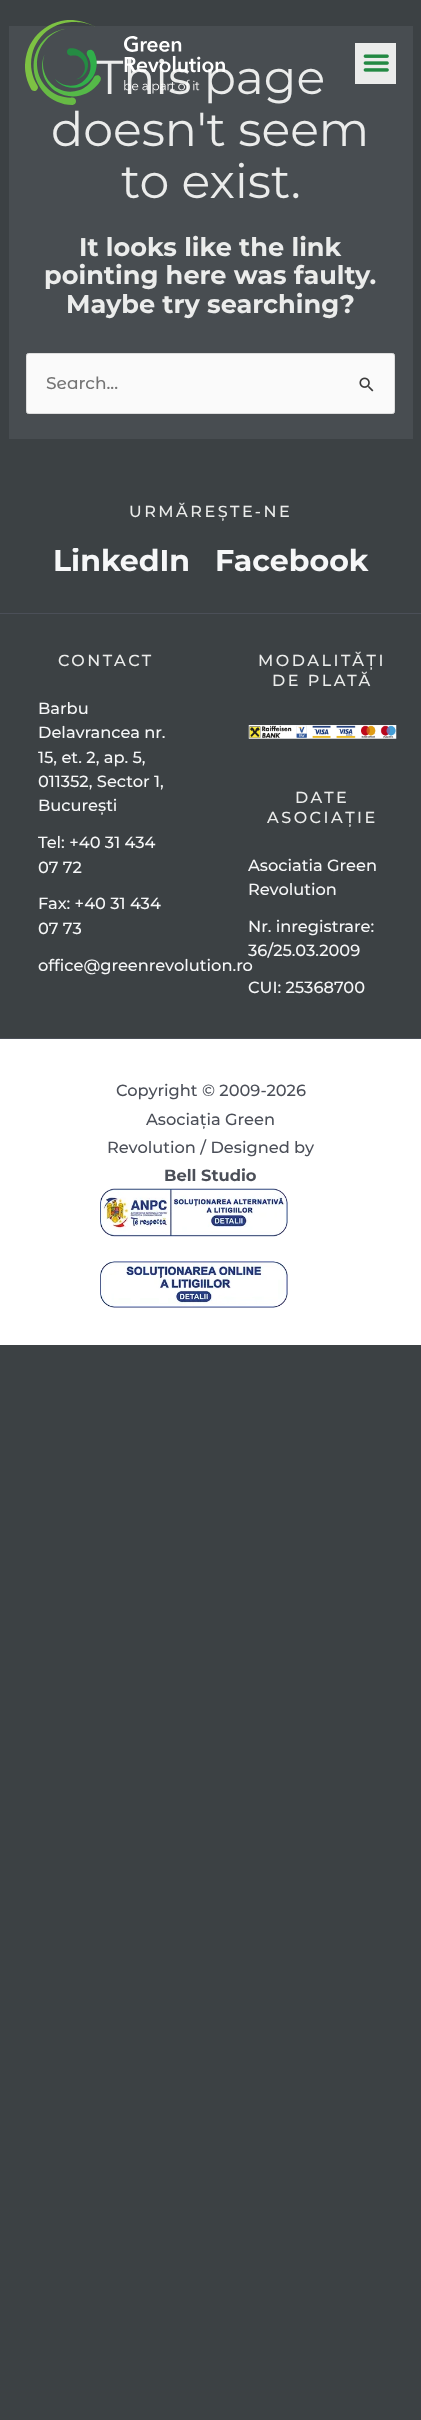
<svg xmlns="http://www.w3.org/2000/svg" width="421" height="2420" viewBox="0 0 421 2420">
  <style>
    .t1 { font: 47.5px Montserrat; fill: #ebeceb; }
    .t2 { font: bold 25.6px Montserrat; fill: #ebeceb; }
    .t3 { font: 500 17px Montserrat Alternates; fill: #757575; }
    .t4 { font: 500 16px Montserrat; letter-spacing: 2.5px; fill: #ebeceb; }
    .t5 { font: bold 30px Montserrat; fill: #f6f7f8; }
    .t6 { font: 500 16.25px Montserrat; fill: #f6f7f8; }
    .t7 { font: 500 16.25px Montserrat; fill: #4b4f58; }
    .t8 { font: bold 16.25px Montserrat; fill: #4b4f58; }
  </style>
  <defs>
    <clipPath id="clip1"><rect x="38" y="548" width="346" height="27"/></clipPath>
  </defs>
  <rect width="100%" height="100%" fill="#3c4144"/>
  <rect x="9" y="26" width="404" height="413" fill="#484d51"/>
  <text x="96" y="94" class="t1">This page</text>
  <image x="25" y="20" width="200" height="85" href="images/1.png"/>
  <rect x="355" y="43" width="41" height="41" fill="#ebeceb"/>
  <image x="363" y="54" width="26" height="18" href="images/2.png"/>
  <text x="51" y="146" class="t1">doesn't seem</text>
  <text x="121" y="198" class="t1">to exist.</text>
  <text x="79" y="256" class="t2">It looks like the link</text>
  <text x="44" y="284" class="t2">pointing here was faulty.</text>
  <text x="66" y="313" class="t2">Maybe try searching?</text>
  <rect x="26.5" y="353.5" width="368" height="60" rx="2" fill="#fafafa" stroke="#ddd"/>
  <text x="46" y="389" class="t3">Search...</text>
  <image x="359" y="377" width="15" height="15" href="images/3.png"/>
  <text x="129" y="517" class="t4">URMĂREȘTE-NE</text>
  <g clip-path="url(#clip1)">
    <text x="53" y="571" class="t5">LinkedIn</text>
  </g>
  <text x="215" y="571" class="t5">Facebook</text>
  <rect x="0" y="613" width="421" height="1" fill="#4b4f58"/>
  <text x="58" y="666" class="t4">CONTACT</text>
  <text x="38" y="714" class="t6">Barbu</text>
  <text x="38" y="738" class="t6">Delavrancea nr.</text>
  <text x="38" y="763" class="t6">15, et. 2, ap. 5,</text>
  <text x="38" y="787" class="t6">011352, Sector 1,</text>
  <text x="38" y="811" class="t6">București</text>
  <text x="38" y="848" class="t6">Tel: +40 31 434</text>
  <text x="38" y="873" class="t6">07 72</text>
  <text x="38" y="909" class="t6">Fax: +40 31 434</text>
  <text x="38" y="934" class="t6">07 73</text>
  <text x="38" y="971" class="t6">office@greenrevolution.ro</text>
  <text x="258" y="666" class="t4">MODALITĂȚI</text>
  <text x="272" y="686" class="t4">DE PLATĂ</text>
  <image x="248" y="725" width="149" height="14" href="images/4.png"/>
  <text x="295" y="803" class="t4">DATE</text>
  <text x="267" y="823" class="t4">ASOCIAȚIE</text>
  <text x="248" y="871" class="t6">Asociatia Green</text>
  <text x="248" y="895" class="t6">Revolution</text>
  <text x="248" y="932" class="t6">Nr. inregistrare:</text>
  <text x="248" y="956" class="t6">36/25.03.2009</text>
  <text x="248" y="993" class="t6">CUI: 25368700</text>
  <rect x="0" y="1039" width="421" height="306" fill="#fff"/>
  <rect x="0" y="1038" width="421" height="1" fill="#4b4f58"/>
  <text x="116" y="1096" class="t7">Copyright © 2009-2026</text>
  <text x="146" y="1125" class="t7">Asociația Green</text>
  <text x="107" y="1153" class="t7">Revolution / Designed by</text>
  <text x="164" y="1181" class="t8">Bell Studio</text>
  <image x="100" y="1188" width="188" height="49" href="images/5.png"/>
  <image x="100" y="1261" width="188" height="47" href="images/6.png"/>
</svg>
